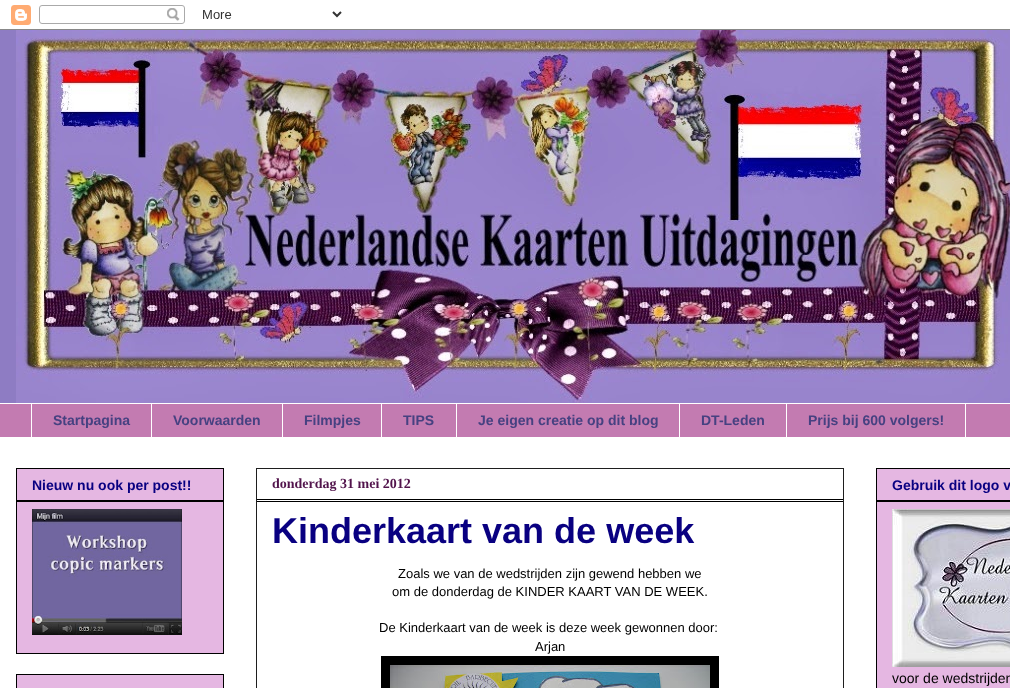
<svg xmlns="http://www.w3.org/2000/svg" width="1010" height="688" viewBox="0 0 1010 688">
  <style>
    .t1 { font: bold 14px Liberation Sans; fill: #464181; }
    .t2 { font: bold 14px Liberation Sans; fill: #090081; }
    .t3 { font: bold 14px Liberation Serif; fill: #52144c; }
    .t4 { font: bold 36px Liberation Sans; fill: #090081; }
    .t5 { font: 13px Liberation Sans; fill: #000; }
    .t6 { font: 14px Liberation Sans; fill: #000; }
  </style>
  <rect width="100%" height="100%" fill="#fff"/>
  <image x="0" y="5" width="1010" height="25" href="images/1.png"/>
  <rect x="0" y="30" width="16" height="373" fill="#8e7cc3"/>
  <image x="16" y="30" width="994" height="373" href="images/2.png"/>
  <rect x="0" y="404" width="1010" height="33" fill="#c37bb1"/>
  <rect x="31" y="403" width="1" height="35" fill="#fff"/>
  <text x="53" y="425" class="t1">Startpagina</text>
  <rect x="151" y="403" width="1" height="35" fill="#fff"/>
  <text x="173" y="425" class="t1">Voorwaarden</text>
  <rect x="282" y="403" width="1" height="35" fill="#fff"/>
  <text x="304" y="425" class="t1">Filmpjes</text>
  <rect x="381" y="403" width="1" height="35" fill="#fff"/>
  <text x="403" y="425" class="t1">TIPS</text>
  <rect x="456" y="403" width="1" height="35" fill="#fff"/>
  <text x="478" y="425" class="t1">Je eigen creatie op dit blog</text>
  <rect x="679" y="403" width="1" height="35" fill="#fff"/>
  <text x="701" y="425" class="t1">DT-Leden</text>
  <rect x="786.5" y="403.5" width="179" height="34" fill="none" stroke="#fff"/>
  <text x="808" y="425" class="t1">Prijs bij 600 volgers!</text>
  <rect x="16.5" y="468.5" width="207" height="185" fill="#e5b7e2" stroke="#000"/>
  <text x="32" y="490" class="t2">Nieuw nu ook per post!!</text>
  <rect x="17" y="500" width="206" height="2" fill="#000"/>
  <image x="32" y="509" width="150" height="126" href="images/3.png"/>
  <rect x="16.5" y="674.5" width="207" height="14" fill="#e5b7e2" stroke="#000"/>
  <rect x="256.5" y="468.5" width="587" height="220" fill="none" stroke="#1e1e1e"/>
  <rect x="257" y="499" width="586" height="1" fill="#000"/>
  <text x="272" y="488" class="t3">donderdag 31 mei 2012</text>
  <rect x="257" y="501" width="586" height="1" fill="#000"/>
  <text x="272" y="543" class="t4">Kinderkaart van de week</text>
  <text x="398" y="578" class="t5">Zoals we van de wedstrijden zijn gewend hebben we</text>
  <text x="392" y="596" class="t5">om de donderdag de KINDER KAART VAN DE WEEK.</text>
  <text x="379" y="632" class="t5">De Kinderkaart van de week is deze week gewonnen door:</text>
  <text x="535" y="651" class="t5">Arjan</text>
  <rect x="381" y="656" width="338" height="32" fill="#000"/>
  <image x="390" y="665" width="320" height="23" href="images/4.png"/>
  <rect x="876.5" y="468.5" width="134" height="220" fill="#e5b7e2" stroke="#000"/>
  <text x="892" y="490" class="t2">Gebruik dit logo v</text>
  <rect x="877" y="500" width="133" height="2" fill="#000"/>
  <image x="892" y="509" width="118" height="158" href="images/5.png"/>
  <text x="892" y="683" class="t6">voor de wedstrijden</text>
</svg>
